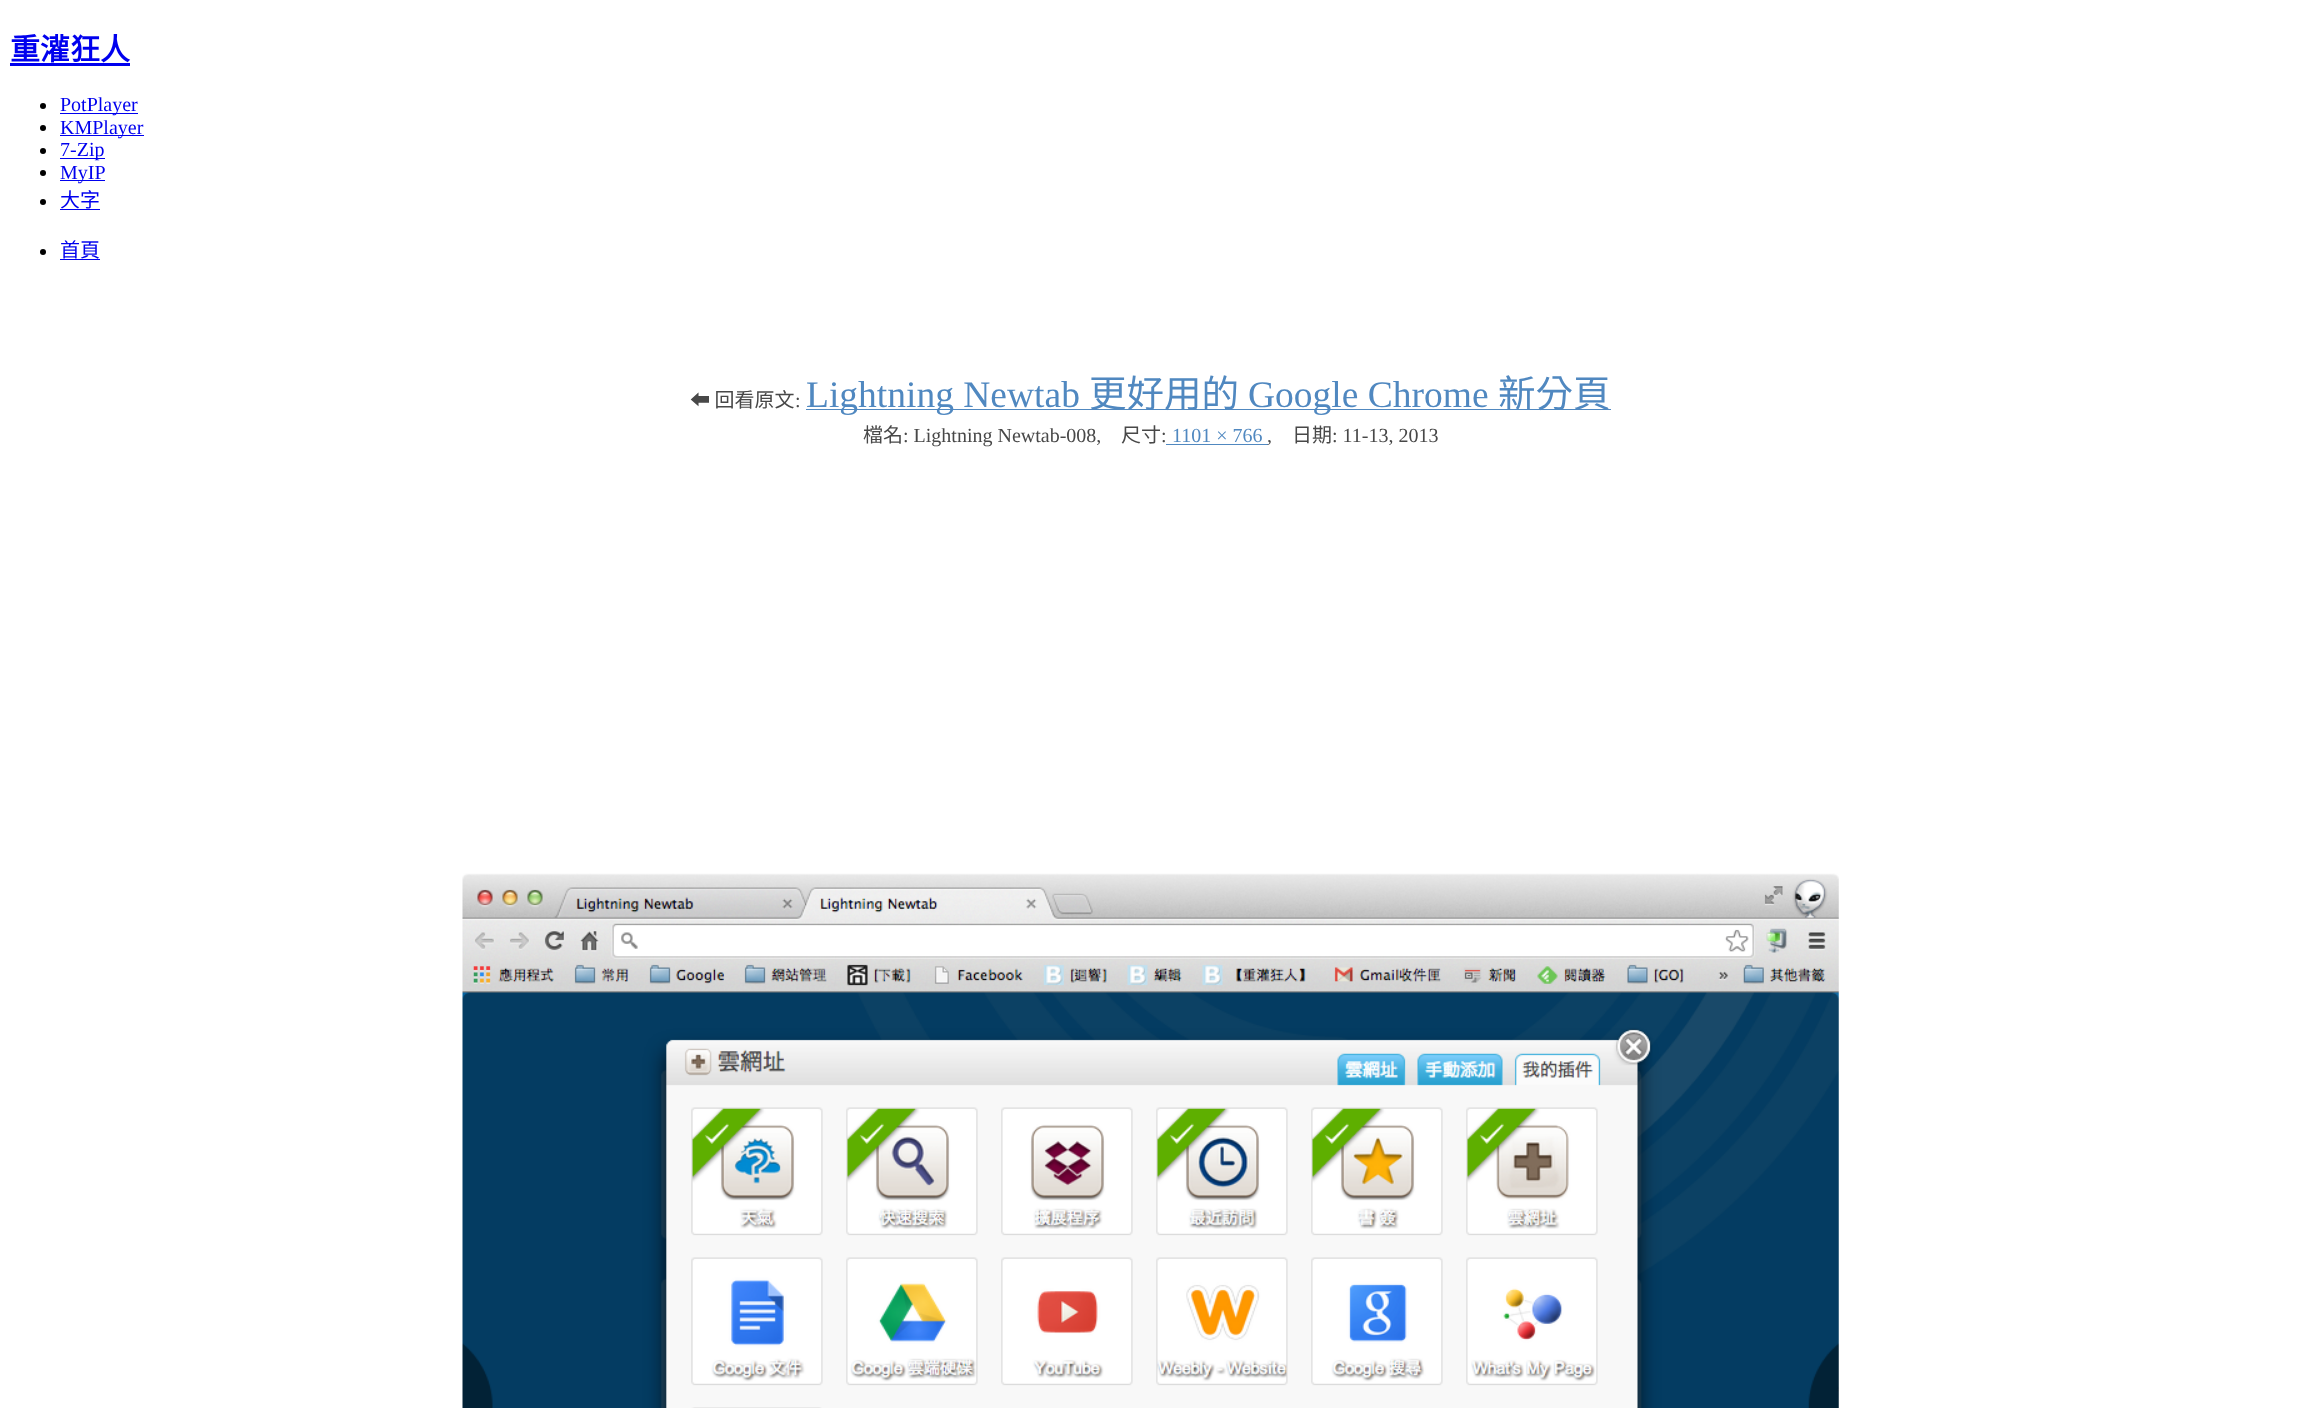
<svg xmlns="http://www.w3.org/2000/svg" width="2301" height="1408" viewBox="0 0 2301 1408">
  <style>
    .t1 { font: bold 30px Noto Sans CJK TC; fill: #00e; }
    .t2 { font: 20px Liberation Serif; fill: #00e; }
    .t3 { font: 20px Noto Sans CJK TC; fill: #00e; }
    .t4 { font: 20px Noto Sans CJK TC; fill: #484848; }
    .t5 { font: 20px Liberation Serif; fill: #484848; }
    .t6 { font: 37.5px Liberation Serif; fill: #5088c0; }
    .t7 { font: 37.5px Noto Sans CJK TC; fill: #5088c0; }
    .t8 { font: 20px Liberation Serif; fill: #5088c0; }
  </style>
  <rect width="100%" height="100%" fill="#fff"/>
  <text x="10" y="60" class="t1">重灌狂人</text>
  <rect x="10" y="63" width="120" height="3" fill="#00e"/>
  <circle cx="43" cy="106" r="3" fill="#000"/>
  <rect x="60" y="113" width="78" height="1" fill="#00e"/>
  <text x="60" y="111" class="t2">PotPlayer</text>
  <circle cx="43" cy="128" r="3" fill="#000"/>
  <rect x="60" y="135" width="84" height="1" fill="#00e"/>
  <text x="60" y="134" class="t2">KMPlayer</text>
  <circle cx="43" cy="151" r="3" fill="#000"/>
  <rect x="60" y="158" width="45" height="1" fill="#00e"/>
  <text x="60" y="156" class="t2">7-Zip</text>
  <circle cx="43" cy="173" r="3" fill="#000"/>
  <rect x="60" y="180" width="45" height="1" fill="#00e"/>
  <text x="60" y="179" class="t2">MyIP</text>
  <circle cx="43" cy="202" r="3" fill="#000"/>
  <text x="60" y="207" class="t3">大字</text>
  <rect x="60" y="209" width="40" height="1" fill="#00e"/>
  <circle cx="43" cy="252" r="3" fill="#000"/>
  <text x="60" y="257" class="t3">首頁</text>
  <rect x="60" y="259" width="40" height="1" fill="#00e"/>
  <text x="690" y="407" class="t4">⬅ 回看原文</text>
  <text x="795" y="407" class="t5">:</text>
  <rect x="806" y="409" width="805" height="1" fill="#5088c0"/>
  <text x="806" y="407" class="t6">Lightning Newtab</text>
  <text x="1089" y="407" class="t7">更好用的</text>
  <text x="1248" y="407" class="t6">Google Chrome</text>
  <text x="1498" y="407" class="t7">新分頁</text>
  <text x="863" y="442" class="t4">檔名</text>
  <text x="903" y="442" class="t5">: Lightning Newtab-008,</text>
  <text x="1121" y="442" class="t4">尺寸</text>
  <text x="1161" y="442" class="t5">:</text>
  <text x="1172" y="442" class="t8">1101 × 766</text>
  <rect x="1166" y="444" width="102" height="1" fill="#5088c0"/>
  <text x="1267" y="442" class="t5">,</text>
  <text x="1292" y="442" class="t4">日期</text>
  <text x="1332" y="442" class="t5">: 11-13, 2013</text>
  <image x="462" y="873" width="1377" height="535" href="images/1.png"/>
</svg>
